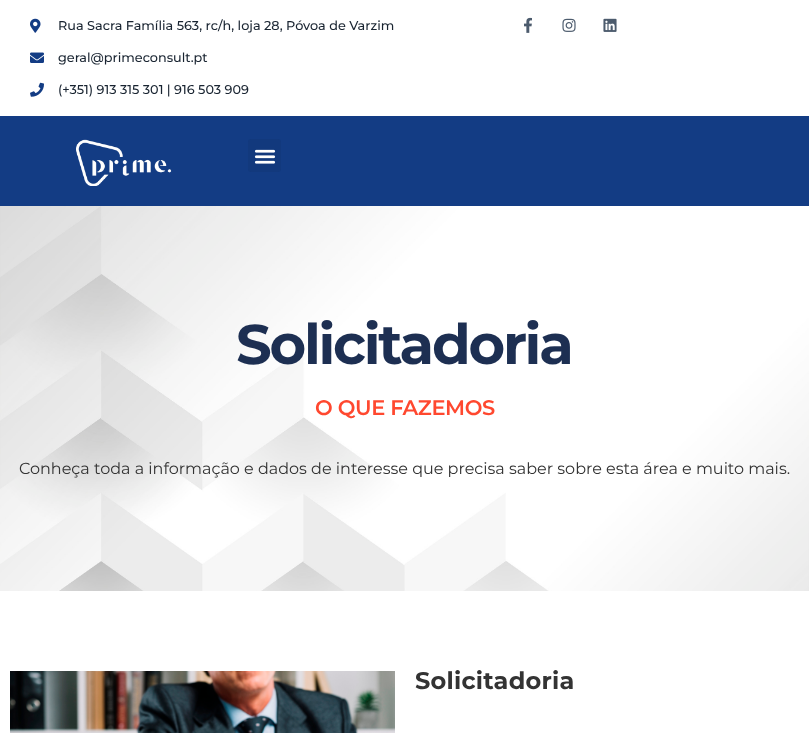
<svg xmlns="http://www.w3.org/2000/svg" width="809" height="733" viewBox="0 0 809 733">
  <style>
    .t1 { font: 500 12.8px Montserrat; fill: #192431; }
    .t2 { font: bold 56px Montserrat; letter-spacing: -2.25px; fill: #1d2f52; }
    .t3 { font: 600 21px Montserrat; letter-spacing: -0.4px; fill: #ff482f; }
    .t4 { font: 16px Montserrat; fill: #333; }
    .t5 { font: bold 24px Montserrat; letter-spacing: 0.25px; fill: #333; }
  </style>
  <rect width="100%" height="100%" fill="#fff"/>
  <image x="30" y="18" width="11" height="15" href="images/1.png"/>
  <text x="58" y="30" class="t1">Rua Sacra Família 563, rc/h, loja 28, Póvoa de Varzim</text>
  <image x="30" y="52" width="14" height="11" href="images/2.png"/>
  <text x="58" y="62" class="t1">geral@primeconsult.pt</text>
  <image x="30" y="82" width="14" height="15" href="images/3.png"/>
  <text x="58" y="94" class="t1">(+351) 913 315 301 | 916 503 909</text>
  <image x="524" y="17" width="8" height="16" href="images/4.png"/>
  <image x="562" y="18" width="14" height="14" href="images/5.png"/>
  <image x="603" y="18" width="14" height="14" href="images/6.png"/>
  <rect x="0" y="116" width="809" height="90" fill="#133c84"/>
  <image x="76" y="139" width="96" height="47" href="images/7.png"/>
  <rect x="248" y="139" width="33" height="33" rx="3" fill="#12397d"/>
  <image x="254" y="149" width="22" height="15" href="images/8.png"/>
  <image x="0" y="206" width="809" height="385" href="images/9.png"/>
  <text x="236" y="364" class="t2">Solicitadoria</text>
  <text x="315" y="415" class="t3">O QUE FAZEMOS</text>
  <text x="19" y="474" class="t4">Conheça toda a informação e dados de interesse que precisa saber sobre esta área e muito mais.</text>
  <image x="10" y="671" width="385" height="62" href="images/10.png"/>
  <text x="415" y="689" class="t5">Solicitadoria</text>
</svg>
